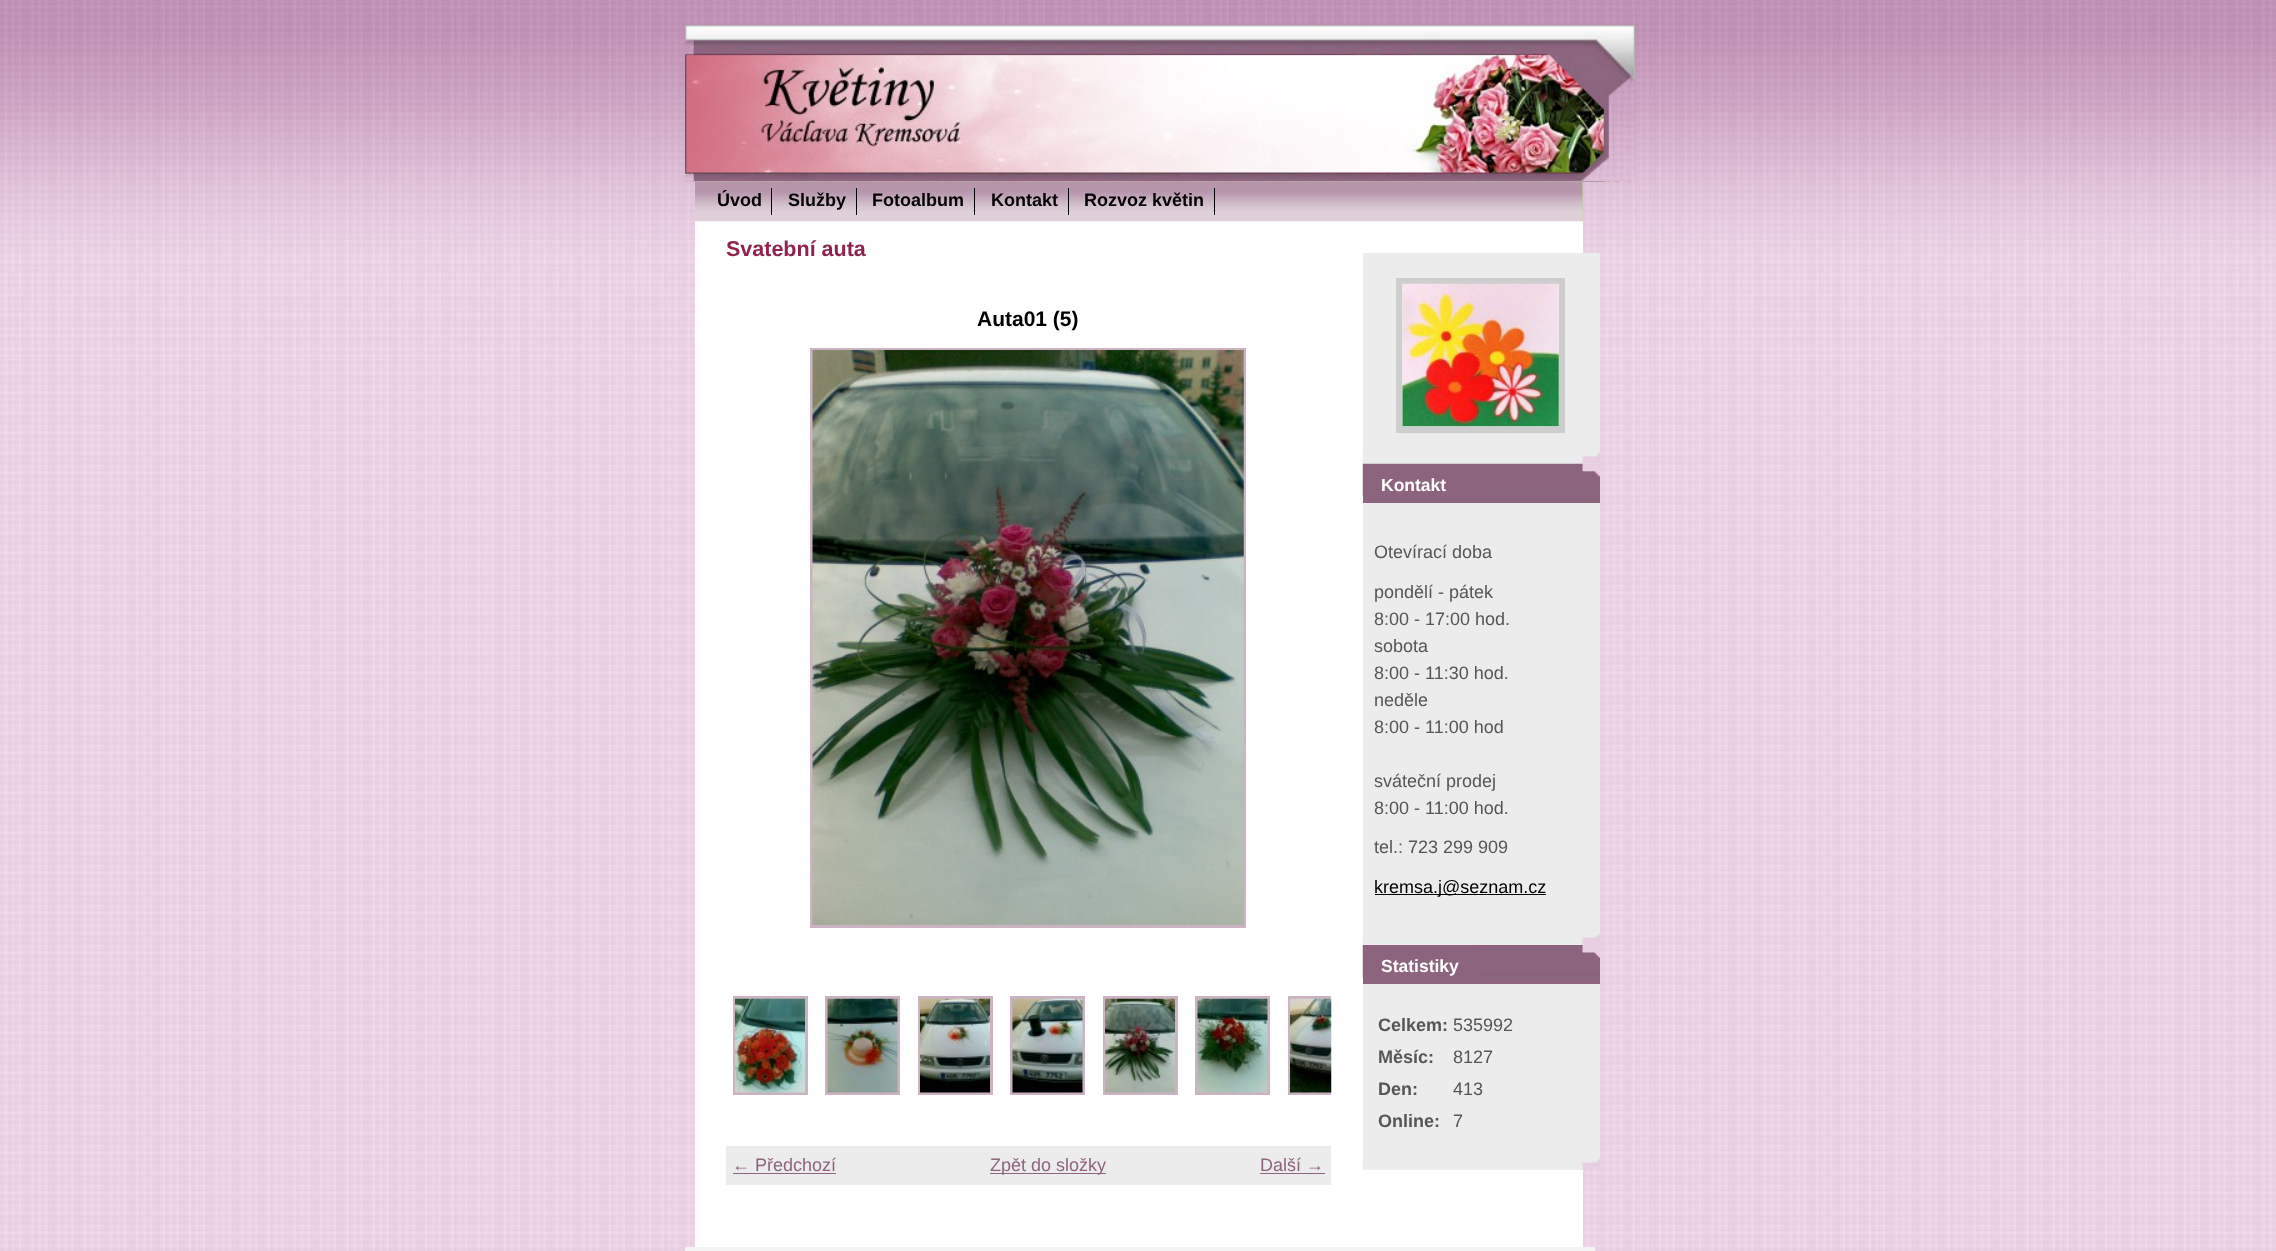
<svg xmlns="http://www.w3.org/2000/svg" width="2276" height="1251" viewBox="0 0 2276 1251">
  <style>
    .t1 { font: bold 18px Liberation Sans; fill: #000; }
    .t2 { font: bold 21.5px Liberation Sans; fill: #90234d; }
    .t3 { font: bold 21px Liberation Sans; fill: #000; }
    .t4 { font: 18px Liberation Sans; fill: #8e647e; }
    .t5 { font: bold 17.5px Liberation Sans; fill: #fff; }
    .t6 { font: 18px Liberation Sans; fill: #565656; }
    .t7 { font: 18px Liberation Sans; fill: #000; }
    .t8 { font: bold 18px Liberation Sans; fill: #565656; }
  </style>
  <defs>
    <clipPath id="clip1"><rect x="726" y="996" width="605" height="125"/></clipPath>
  </defs>
  <rect width="100%" height="100%" fill="#fff"/>
  <image x="0" y="357" width="2276" height="894" href="images/1.png"/>
  <image x="0" y="0" width="2276" height="357" href="images/2.png"/>
  <rect x="695" y="221" width="888" height="1026" fill="#fff"/>
  <image x="685" y="54" width="950" height="128" href="images/3.png"/>
  <image x="685" y="25" width="950" height="157" href="images/4.png"/>
  <rect x="695" y="181" width="888" height="40" fill="#c1d39c"/>
  <image x="695" y="181" width="888" height="41" href="images/5.png"/>
  <rect x="771" y="188" width="1" height="27" fill="#000"/>
  <text x="717" y="206" class="t1">Úvod</text>
  <rect x="856" y="188" width="1" height="27" fill="#000"/>
  <text x="788" y="206" class="t1">Služby</text>
  <rect x="974" y="188" width="1" height="27" fill="#000"/>
  <text x="872" y="206" class="t1">Fotoalbum</text>
  <rect x="1068" y="188" width="1" height="27" fill="#000"/>
  <text x="991" y="206" class="t1">Kontakt</text>
  <rect x="1214" y="188" width="1" height="27" fill="#000"/>
  <text x="1084" y="206" class="t1">Rozvoz květin</text>
  <text x="726" y="256" class="t2">Svatební auta</text>
  <text x="977" y="326" class="t3">Auta01 (5)</text>
  <rect x="811.5" y="349.5" width="433" height="577" fill="none" stroke="#cbb3c2" stroke-width="3"/>
  <image x="812" y="350" width="432" height="575" href="images/6.png"/>
  <rect x="734.5" y="997.5" width="72" height="96" fill="none" stroke="#cbb3c2" stroke-width="3"/>
  <rect x="826.5" y="997.5" width="72" height="96" fill="none" stroke="#cbb3c2" stroke-width="3"/>
  <rect x="919.5" y="997.5" width="72" height="96" fill="none" stroke="#cbb3c2" stroke-width="3"/>
  <rect x="1011.5" y="997.5" width="72" height="96" fill="none" stroke="#cbb3c2" stroke-width="3"/>
  <rect x="1104.5" y="997.5" width="72" height="96" fill="none" stroke="#cbb3c2" stroke-width="3"/>
  <rect x="1196.5" y="997.5" width="72" height="96" fill="none" stroke="#cbb3c2" stroke-width="3"/>
  <g clip-path="url(#clip1)">
    <rect x="1289.5" y="997.5" width="72" height="96" fill="none" stroke="#cbb3c2" stroke-width="3"/>
  </g>
  <image x="735" y="998" width="70" height="95" href="images/7.png"/>
  <image x="827" y="998" width="71" height="95" href="images/8.png"/>
  <image x="920" y="998" width="70" height="95" href="images/9.png"/>
  <image x="1012" y="998" width="71" height="95" href="images/10.png"/>
  <image x="1105" y="998" width="70" height="95" href="images/11.png"/>
  <image x="1197" y="998" width="71" height="95" href="images/12.png"/>
  <image x="1290" y="998" width="42" height="95" href="images/13.png"/>
  <rect x="726" y="1146" width="605" height="39" fill="#ececec"/>
  <text x="732" y="1171" class="t4">← Předchozí</text>
  <rect x="733" y="1173" width="103" height="1" fill="#8e647e"/>
  <rect x="990" y="1173" width="116" height="1" fill="#8e647e"/>
  <text x="990" y="1171" class="t4">Zpět do složky</text>
  <text x="1260" y="1171" class="t4">Další →</text>
  <rect x="1260" y="1173" width="65" height="1" fill="#8e647e"/>
  <rect x="1363" y="253" width="237" height="905" fill="#ececec"/>
  <image x="1362" y="451" width="238" height="13" href="images/14.png"/>
  <rect x="1399" y="281" width="163" height="149" fill="none" stroke="#cecece" stroke-width="6"/>
  <image x="1402" y="283" width="157" height="144" href="images/15.png"/>
  <rect x="1363" y="496" width="237" height="7" fill="#8c647e"/>
  <image x="1362" y="463" width="238" height="34" href="images/16.png"/>
  <text x="1381" y="491" class="t5">Kontakt</text>
  <image x="1362" y="932" width="238" height="13" href="images/17.png"/>
  <text x="1374" y="558" class="t6">Otevírací doba</text>
  <text x="1374" y="598" class="t6">pondělí - pátek</text>
  <text x="1374" y="625" class="t6">8:00 - 17:00 hod.</text>
  <text x="1374" y="652" class="t6">sobota</text>
  <text x="1374" y="679" class="t6">8:00 - 11:30 hod.</text>
  <text x="1374" y="706" class="t6">neděle</text>
  <text x="1374" y="733" class="t6">8:00 - 11:00 hod</text>
  <text x="1374" y="787" class="t6">sváteční prodej</text>
  <text x="1374" y="814" class="t6">8:00 - 11:00 hod.</text>
  <text x="1374" y="853" class="t6">tel.: 723 299 909</text>
  <rect x="1375" y="894" width="171" height="1" fill="#000"/>
  <text x="1374" y="893" class="t7">kremsa.j@seznam.cz</text>
  <rect x="1363" y="977" width="237" height="7" fill="#8c647e"/>
  <image x="1362" y="945" width="238" height="33" href="images/18.png"/>
  <text x="1381" y="972" class="t5">Statistiky</text>
  <image x="1362" y="1157" width="238" height="13" href="images/17.png"/>
  <text x="1378" y="1031" class="t8">Celkem:</text>
  <text x="1453" y="1031" class="t6">535992</text>
  <text x="1378" y="1063" class="t8">Měsíc:</text>
  <text x="1453" y="1063" class="t6">8127</text>
  <text x="1378" y="1095" class="t8">Den:</text>
  <text x="1453" y="1095" class="t6">413</text>
  <text x="1378" y="1127" class="t8">Online:</text>
  <text x="1453" y="1127" class="t6">7</text>
  <rect x="685" y="1247" width="910" height="4" fill="#f4f4f4"/>
</svg>
